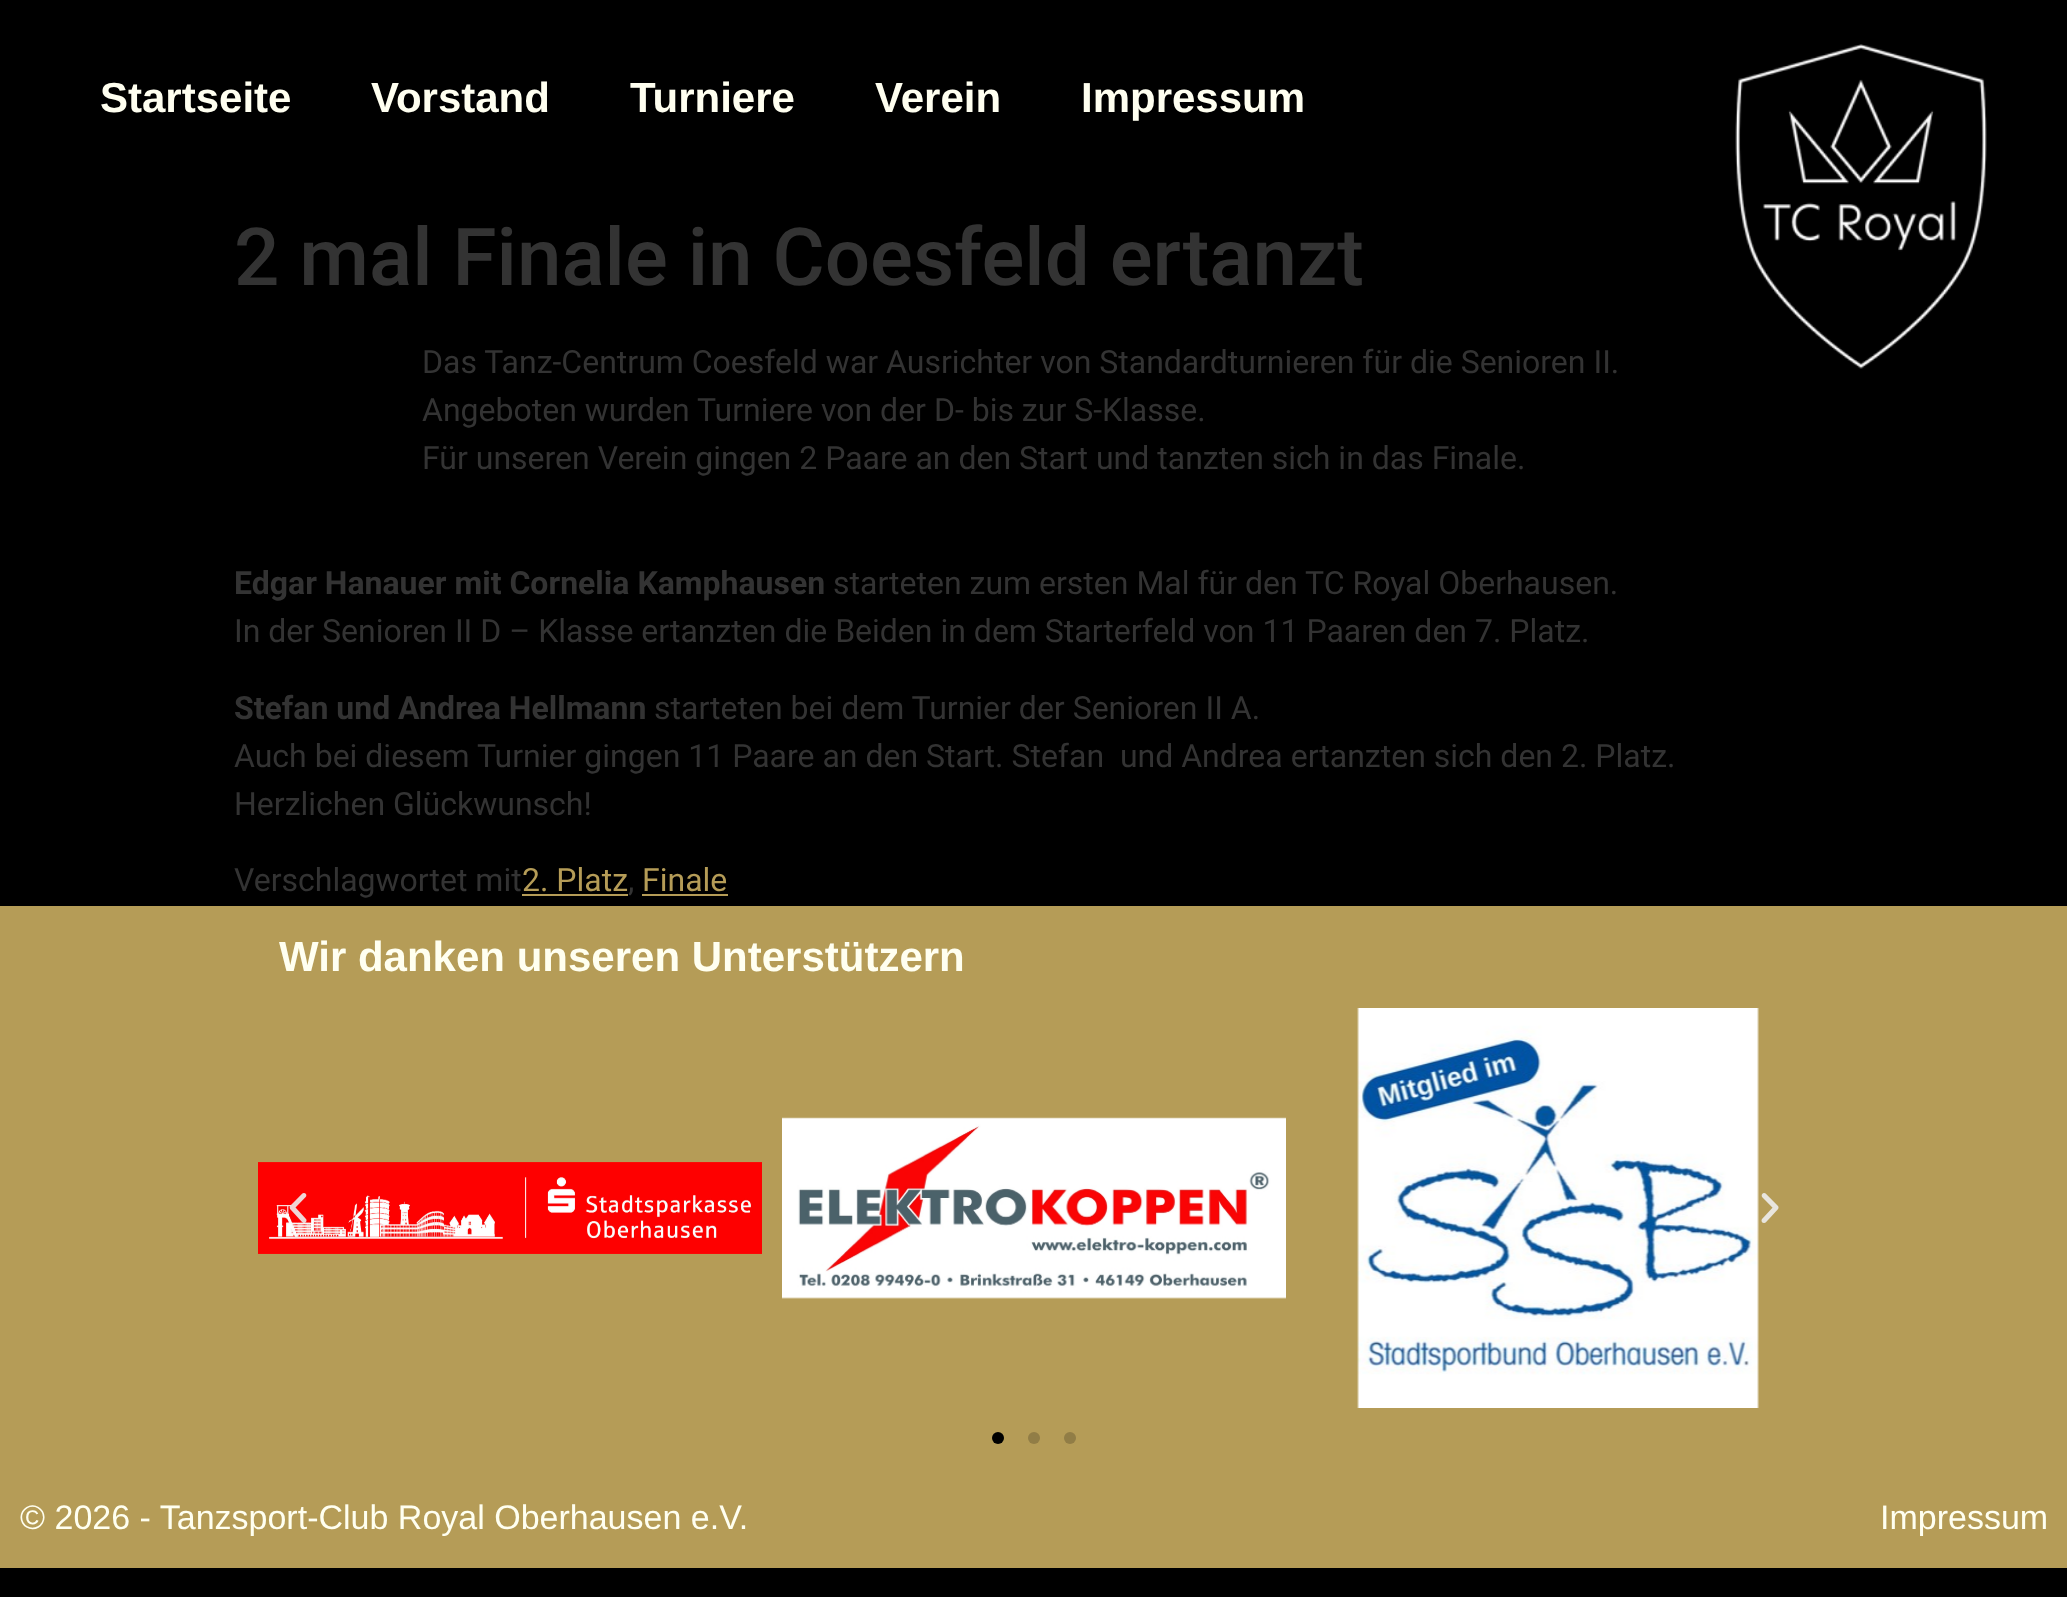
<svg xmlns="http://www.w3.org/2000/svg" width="2067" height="1597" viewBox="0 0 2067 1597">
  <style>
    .t1 { font: bold 42px Liberation Sans; fill: #fffff0; }
    .t2 { font: 500 80px Roboto; fill: #333; }
    .t3 { font: 32px Roboto; fill: #333; }
    .t4 { font: bold 32px Roboto; fill: #333; }
    .t5 { font: 32px Roboto; fill: #b59c57; }
    .t6 { font: 34px Liberation Sans; fill: #fffff0; }
  </style>
  <rect width="100%" height="100%" fill="#000"/>
  <text x="100" y="112" class="t1">Startseite</text>
  <text x="371" y="112" class="t1">Vorstand</text>
  <text x="630" y="112" class="t1">Turniere</text>
  <text x="875" y="112" class="t1">Verein</text>
  <text x="1081" y="112" class="t1">Impressum</text>
  <image x="1735" y="44" width="252" height="325" href="images/1.png"/>
  <text x="234" y="285" class="t2">2 mal Finale in Coesfeld ertanzt</text>
  <text x="422" y="373" class="t3">Das Tanz-Centrum Coesfeld war Ausrichter von Standardturnieren für die Senioren II.</text>
  <text x="422" y="421" class="t3">Angeboten wurden Turniere von der D- bis zur S-Klasse.</text>
  <text x="422" y="469" class="t3">Für unseren Verein gingen 2 Paare an den Start und tanzten sich in das Finale.</text>
  <text x="234" y="594" class="t4">Edgar Hanauer mit Cornelia Kamphausen</text>
  <text x="833" y="594" class="t3">starteten zum ersten Mal für den TC Royal Oberhausen.</text>
  <text x="234" y="642" class="t3">In der Senioren II D – Klasse ertanzten die Beiden in dem Starterfeld von 11 Paaren den 7. Platz.</text>
  <text x="234" y="719" class="t4">Stefan und Andrea Hellmann</text>
  <text x="654" y="719" class="t3">starteten bei dem Turnier der Senioren II A.</text>
  <text x="234" y="767" class="t3" xml:space="preserve">Auch bei diesem Turnier gingen 11 Paare an den Start. Stefan  und Andrea ertanzten sich den 2. Platz.</text>
  <text x="234" y="815" class="t3">Herzlichen Glückwunsch!</text>
  <text x="234" y="891" class="t3">Verschlagwortet mit</text>
  <text x="522" y="891" class="t5">2. Platz</text>
  <text x="628" y="891" class="t3">,</text>
  <rect x="522" y="894" width="106" height="2" fill="#b59c57"/>
  <rect x="642" y="894" width="86" height="2" fill="#b59c57"/>
  <text x="642" y="891" class="t5">Finale</text>
  <rect x="0" y="906" width="2067" height="662" fill="#b59c57"/>
  <text x="279" y="971" class="t1">Wir danken unseren Unterstützern</text>
  <image x="258" y="1162" width="504" height="92" href="images/2.png"/>
  <image x="782" y="1117" width="504" height="182" href="images/3.png"/>
  <image x="1357" y="1008" width="402" height="400" href="images/4.png"/>
  <image x="289" y="1193" width="18" height="30" href="images/5.png"/>
  <image x="1761" y="1193" width="18" height="30" href="images/6.png"/>
  <circle cx="998" cy="1438" r="6" fill="#000"/>
  <circle cx="1034" cy="1438" r="6" fill="#917d46"/>
  <circle cx="1070" cy="1438" r="6" fill="#917d46"/>
  <text x="20" y="1529" class="t6">© 2026 - Tanzsport-Club Royal Oberhausen e.V.</text>
  <text x="1880" y="1529" class="t6">Impressum</text>
</svg>
